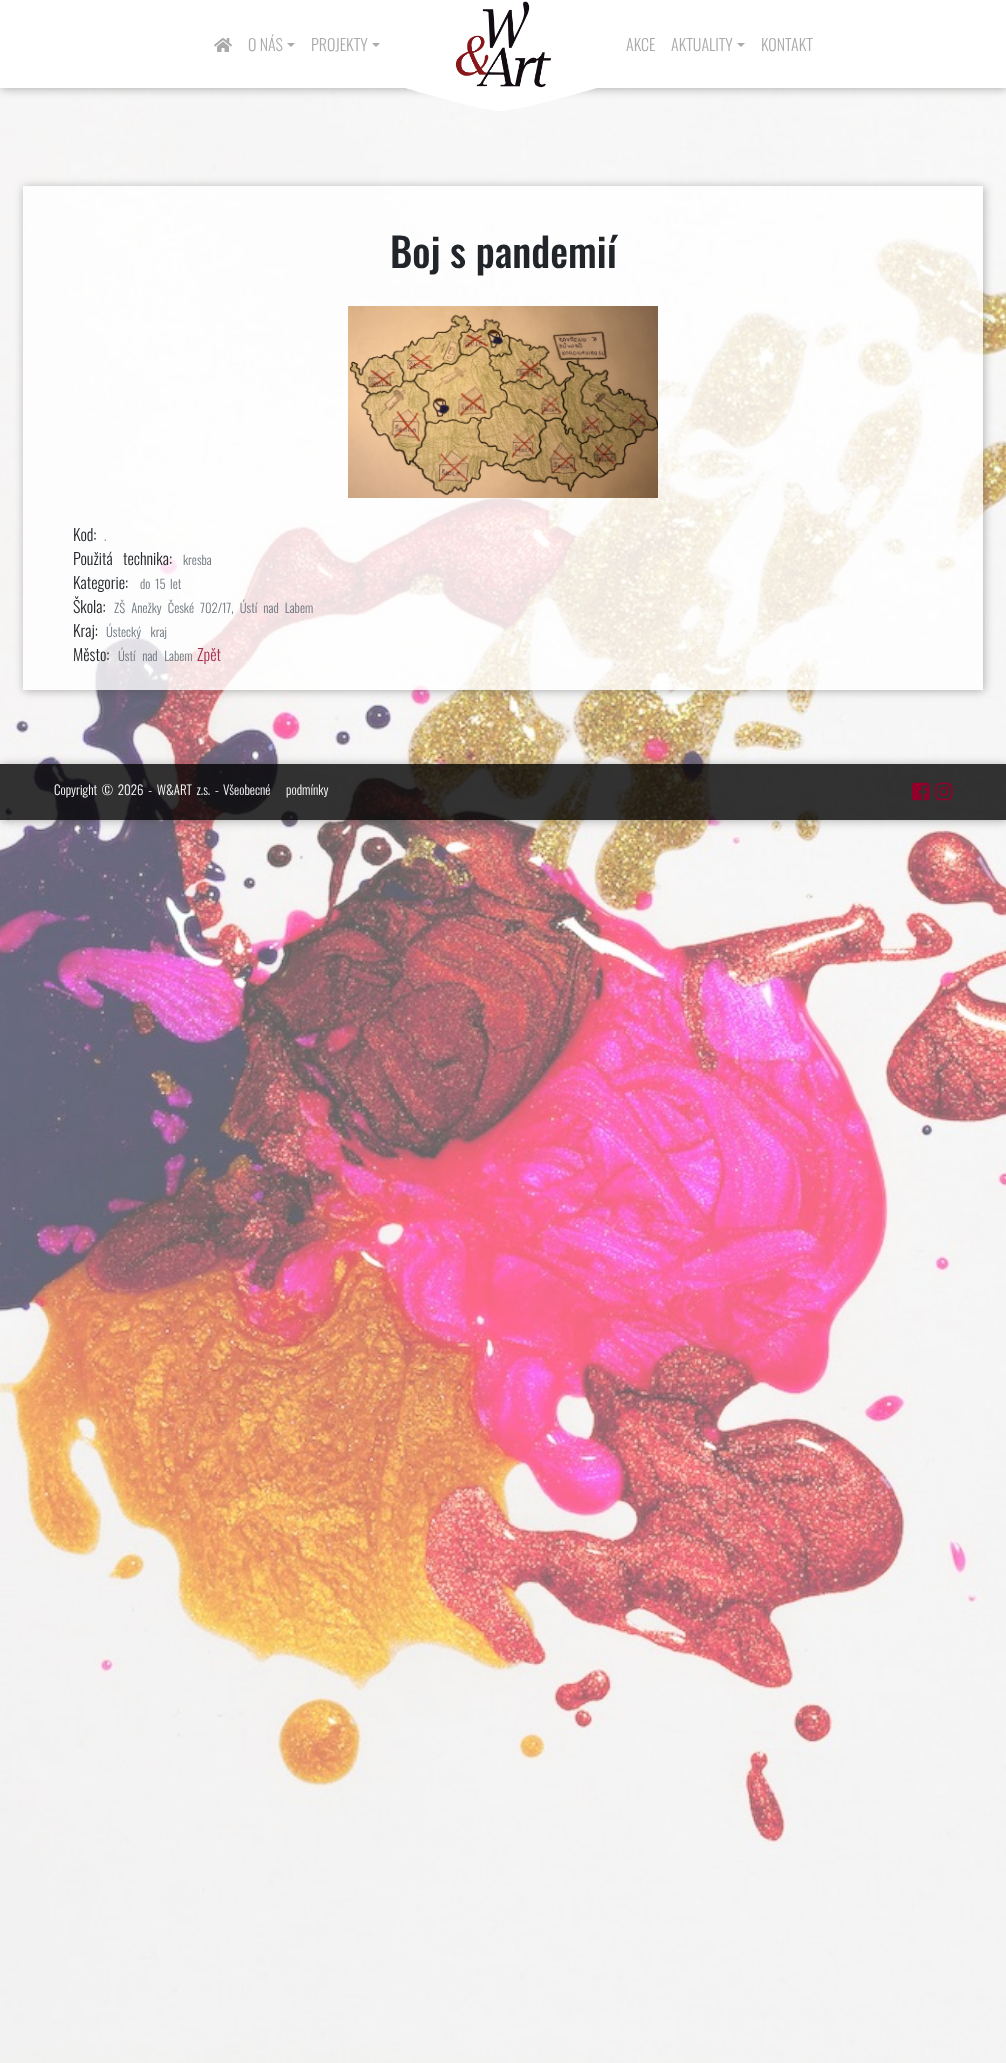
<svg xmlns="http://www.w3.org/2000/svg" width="1006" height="2063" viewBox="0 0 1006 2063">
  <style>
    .t1 { font: 300 16px Oswald; fill: #aaa; }
    .t2 { font: 500 40px Oswald; fill: #212529; }
    .t3 { font: 300 16px Oswald; fill: #212529; }
    .t4 { font: 300 12.75px Oswald; fill: #6c757d; }
    .t5 { font: 300 16px Oswald; fill: #a52e50; }
    .t6 { font: 300 13px Oswald; fill: #fff; }
    .t7 { font: 300 13px Oswald; fill: #f8f9fa; }
  </style>
  <defs>
    <clipPath id="clip1"><path d="M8 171H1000V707H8ZM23 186H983V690H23Z" clip-rule="evenodd"/></clipPath>
    <clipPath id="clip2"><path d="M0 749H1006V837H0ZM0 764H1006V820H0Z" clip-rule="evenodd"/></clipPath>
  </defs>
  <rect width="100%" height="100%" fill="#fff"/>
  <image x="0" y="88" width="1006" height="1975" href="images/1.png"/>
  <rect x="1" y="1" width="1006" height="88" fill="#42424266" filter="blur(5px)"/>
  <rect x="0" y="0" width="1006" height="88" fill="#fff"/>
  <image x="455" y="1" width="96" height="87" href="images/2.png"/>
  <image x="214" y="38" width="18" height="14" href="images/3.png"/>
  <text x="248" y="51" class="t1">O NÁS</text>
  <path d="M287 43H295L291 47Z" fill="#aaa"/>
  <text x="311" y="51" class="t1">PROJEKTY</text>
  <path d="M372 43H380L376 47Z" fill="#aaa"/>
  <text x="626" y="51" class="t1">AKCE</text>
  <text x="671" y="51" class="t1">AKTUALITY</text>
  <path d="M737 43H745L741 47Z" fill="#aaa"/>
  <text x="761" y="51" class="t1">KONTAKT</text>
  <path d="M405 88C405 88 482 111 500 111C519 111 597 88 597 88Z" fill="#fff"/>
  <g clip-path="url(#clip1)">
    <rect x="24" y="187" width="960" height="504" fill="#42424266" filter="blur(5px)"/>
  </g>
  <rect x="23" y="186" width="960" height="504" fill="#ffffffcc"/>
  <text x="390" y="268" class="t2">Boj s pandemií</text>
  <image x="348" y="306" width="310" height="192" href="images/4.png"/>
  <text x="73" y="541" class="t3">Kod:</text>
  <text x="104" y="541" class="t4">.</text>
  <text x="73" y="565" word-spacing="7" class="t3">Použitá technika:</text>
  <text x="183" y="565" class="t4">kresba</text>
  <text x="73" y="589" class="t3">Kategorie:</text>
  <text x="140" y="589" word-spacing="2" class="t4">do 15 let</text>
  <text x="73" y="613" class="t3">Škola:</text>
  <text x="114" y="613" word-spacing="3.5" class="t4">ZŠ Anežky České 702/17, Ústí nad Labem</text>
  <text x="73" y="637" class="t3">Kraj:</text>
  <text x="106" y="637" word-spacing="7" class="t4">Ústecký kraj</text>
  <text x="73" y="661" class="t3">Město:</text>
  <text x="118" y="661" word-spacing="4" class="t4">Ústí nad Labem</text>
  <text x="197" y="661" class="t5">Zpět</text>
  <g clip-path="url(#clip2)">
    <rect x="1" y="765" width="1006" height="56" fill="#42424266" filter="blur(5px)"/>
  </g>
  <rect x="0" y="764" width="1006" height="56" fill="#000000cc"/>
  <text x="54" y="795" word-spacing="2" class="t6">Copyright © 2026 - W&amp;ART z.s. -</text>
  <text x="223" y="795" word-spacing="13" class="t7">Všeobecné podmínky</text>
  <image x="912" y="782" width="18" height="19" href="images/5.png"/>
  <image x="935" y="782" width="18" height="19" href="images/6.png"/>
</svg>
